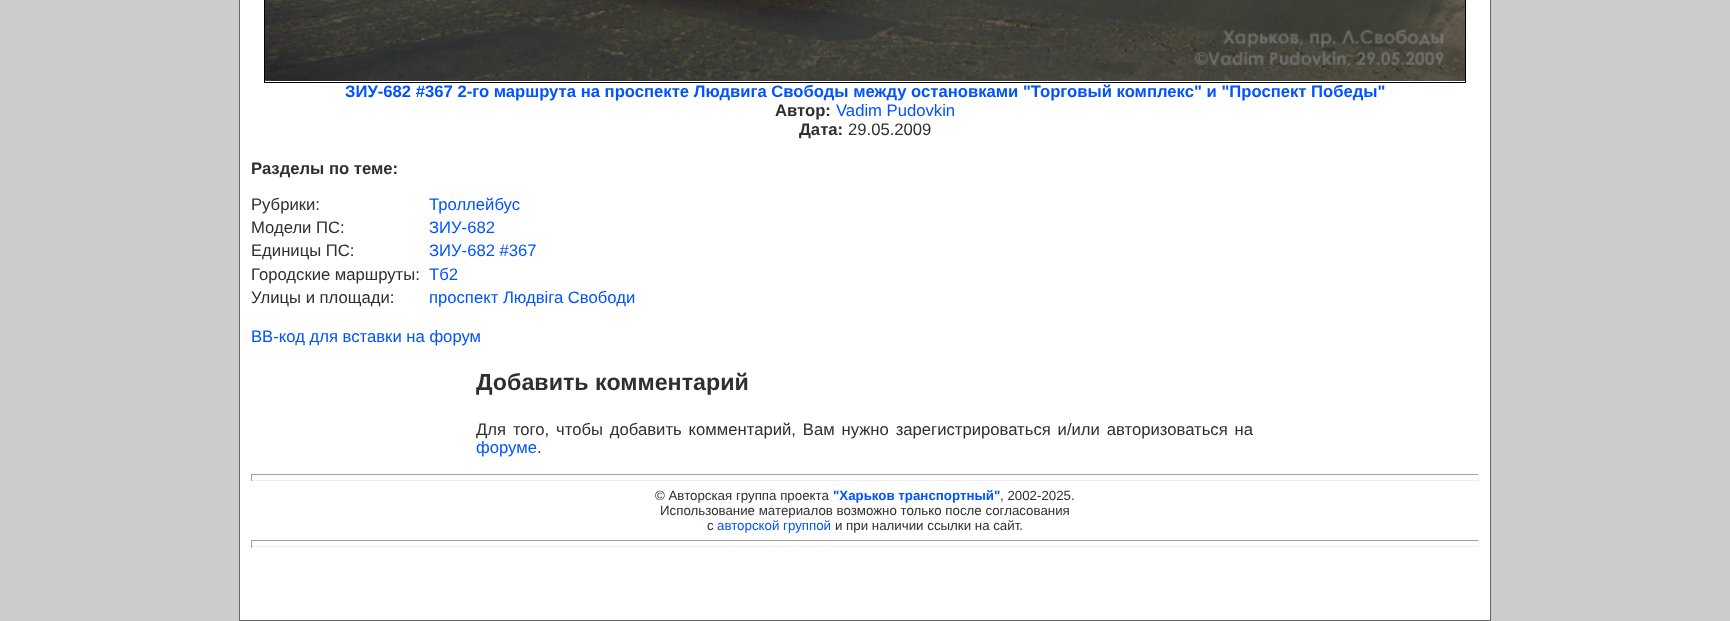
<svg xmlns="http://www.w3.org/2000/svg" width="1730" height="621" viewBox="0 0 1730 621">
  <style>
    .t1 { font: bold 16.67px Liberation Sans; fill: #0053ff; }
    .t2 { font: bold 16.67px Liberation Sans; fill: #2f2f2f; }
    .t3 { font: 16.67px Liberation Sans; fill: #0053ff; }
    .t4 { font: 16.67px Liberation Sans; fill: #2f2f2f; }
    .t5 { font: bold 23.25px Liberation Sans; fill: #2f2f2f; }
    .t6 { font: 13.3px Liberation Sans; fill: #2f2f2f; }
    .t7 { font: bold 13.3px Liberation Sans; fill: #0053ff; }
    .t8 { font: 13.3px Liberation Sans; fill: #0053ff; }
  </style>
  <rect width="100%" height="100%" fill="#ccc"/>
  <rect x="240" y="0" width="1250" height="620" fill="#fff"/>
  <rect x="1490" y="0" width="1" height="621" fill="#666"/>
  <rect x="239" y="620" width="1252" height="1" fill="#666"/>
  <rect x="239" y="0" width="1" height="621" fill="#666"/>
  <rect x="264.5" y="-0.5" width="1201" height="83" fill="none" stroke="#000"/>
  <image x="265" y="0" width="1200" height="81" href="images/1.png"/>
  <text x="345" y="97" class="t1">ЗИУ-682 #367 2-го маршрута на проспекте Людвига Свободы между остановками "Торговый комплекс" и "Проспект Победы"</text>
  <text x="775" y="116" class="t2">Автор:</text>
  <text x="836" y="116" class="t3">Vadim Pudovkin</text>
  <text x="799" y="135" class="t2">Дата:</text>
  <text x="848" y="135" class="t4">29.05.2009</text>
  <text x="251" y="174" class="t2">Разделы по теме:</text>
  <text x="251" y="210" class="t4">Рубрики:</text>
  <text x="429" y="210" class="t3">Троллейбус</text>
  <text x="251" y="233" class="t4">Модели ПС:</text>
  <text x="429" y="233" class="t3">ЗИУ-682</text>
  <text x="251" y="256" class="t4">Единицы ПС:</text>
  <text x="429" y="256" class="t3">ЗИУ-682 #367</text>
  <text x="251" y="280" class="t4">Городские маршруты:</text>
  <text x="429" y="280" class="t3">Тб2</text>
  <text x="251" y="303" class="t4">Улицы и площади:</text>
  <text x="429" y="303" class="t3">проспект Людвіга Свободи</text>
  <text x="251" y="342" class="t3">BB-код для вставки на форум</text>
  <text x="476" y="390" class="t5">Добавить комментарий</text>
  <text x="476" y="435" word-spacing="2.25" class="t4">Для того, чтобы добавить комментарий, Вам нужно зарегистрироваться и/или авторизоваться на</text>
  <text x="476" y="453" class="t3">форуме</text>
  <text x="537" y="453" class="t4">.</text>
  <rect x="251" y="474" width="1228" height="1" fill="#9f9f9f"/>
  <rect x="1478" y="474" width="1" height="7" fill="#eee"/>
  <rect x="251" y="480" width="1228" height="1" fill="#eee"/>
  <rect x="251" y="474" width="1" height="7" fill="#9f9f9f"/>
  <text x="655" y="500" class="t6">© Авторская группа проекта</text>
  <text x="833" y="500" class="t7">"Харьков транспортный"</text>
  <text x="1000" y="500" class="t6">, 2002-2025.</text>
  <text x="660" y="515" class="t6">Использование материалов возможно только после согласования</text>
  <text x="707" y="530" class="t6">с</text>
  <text x="717" y="530" class="t8">авторской группой</text>
  <text x="835" y="530" class="t6">и при наличии ссылки на сайт.</text>
  <rect x="251" y="540" width="1228" height="1" fill="#9f9f9f"/>
  <rect x="1478" y="540" width="1" height="8" fill="#eee"/>
  <rect x="251" y="546" width="1228" height="1" fill="#eee"/>
  <rect x="251" y="540" width="1" height="8" fill="#9f9f9f"/>
</svg>
